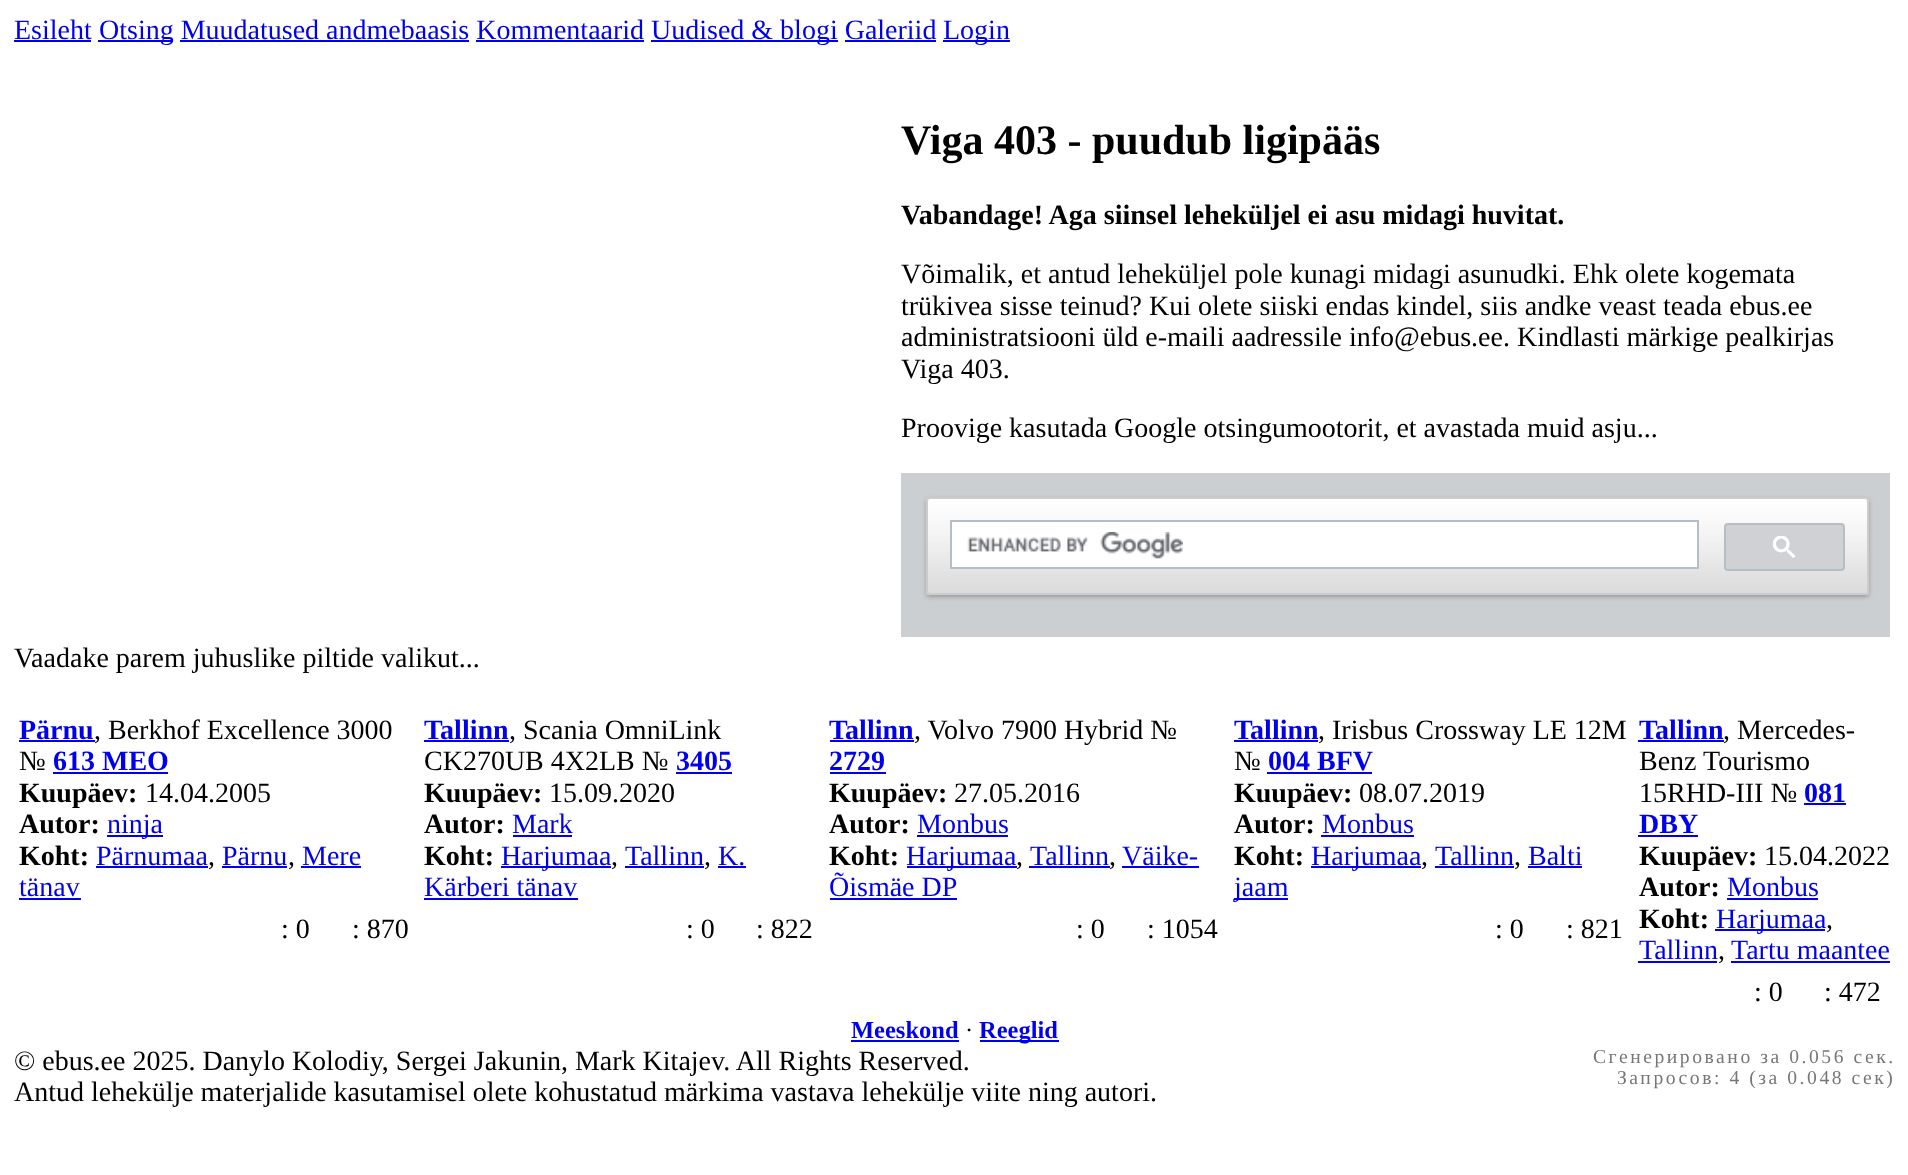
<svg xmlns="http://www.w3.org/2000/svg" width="1908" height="1175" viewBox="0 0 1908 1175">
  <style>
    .t1 { font: 28px Liberation Serif; fill: #00e; }
    .t2 { font: bold 42px Liberation Serif; fill: #000; }
    .t3 { font: bold 28px Liberation Serif; fill: #000; }
    .t4 { font: 28px Liberation Serif; fill: #000; }
    .t5 { font: bold 28px Liberation Serif; fill: #00e; }
    .t6 { font: bold 24.5px Liberation Serif; fill: #00e; }
    .t7 { font: 24.5px Liberation Serif; fill: #000; }
    .t8 { font: 19.6px Liberation Serif; letter-spacing: 2.55px; fill: #777; }
  </style>
  <rect width="100%" height="100%" fill="#fff"/>
  <text x="14" y="39" class="t1">Esileht</text>
  <rect x="14" y="40" width="77" height="2" fill="#00e"/>
  <rect x="98" y="40" width="75" height="2" fill="#00e"/>
  <text x="99" y="39" class="t1">Otsing Muudatused andmebaasis Kommentaarid</text>
  <rect x="651" y="40" width="187" height="2" fill="#00e"/>
  <text x="651" y="39" class="t1">Uudised &amp; blogi Galeriid</text>
  <rect x="943" y="40" width="67" height="2" fill="#00e"/>
  <text x="943" y="39" class="t1">Login</text>
  <rect x="180" y="40" width="289" height="2" fill="#00e"/>
  <rect x="476" y="40" width="168" height="2" fill="#00e"/>
  <rect x="845" y="40" width="91" height="2" fill="#00e"/>
  <text x="901" y="154" class="t2">Viga 403 - puudub ligipääs</text>
  <text x="901" y="224" class="t3">Vabandage! Aga siinsel leheküljel ei asu midagi huvitat.</text>
  <text x="901" y="283" class="t4">Võimalik, et antud leheküljel pole kunagi midagi asunudki. Ehk olete kogemata</text>
  <text x="901" y="315" class="t4">trükivea sisse teinud? Kui olete siiski endas kindel, siis andke veast teada ebus.ee</text>
  <text x="901" y="346" class="t4">administratsiooni üld e-maili aadressile info@ebus.ee. Kindlasti märkige pealkirjas</text>
  <text x="901" y="378" class="t4">Viga 403.</text>
  <text x="901" y="437" class="t4">Proovige kasutada Google otsingumootorit, et avastada muid asju...</text>
  <rect x="901" y="473" width="989" height="164" fill="#cccfd1"/>
  <rect x="926" y="499" width="943" height="98" rx="4" fill="#999" filter="blur(2px)"/>
  <image x="925" y="498" width="944" height="97" href="images/1.png"/>
  <rect x="927" y="498" width="941" height="96" rx="3" fill="none" stroke="#ccc" stroke-width="2"/>
  <rect x="951" y="521" width="747" height="47" fill="#fff" stroke="#b6bec5" stroke-width="2"/>
  <image x="967" y="532" width="216" height="27" href="images/2.png"/>
  <rect x="1725" y="524" width="119" height="46" rx="3" fill="#d0d1d4" stroke="#b6bec5" stroke-width="2"/>
  <image x="1773" y="536" width="23" height="22" href="images/3.png"/>
  <text x="14" y="667" class="t4">Vaadake parem juhuslike piltide valikut...</text>
  <text x="19" y="739" class="t5">Pärnu</text>
  <rect x="19" y="740" width="76" height="2" fill="#00e"/>
  <text x="94" y="739" class="t4">, Berkhof Excellence 3000</text>
  <text x="19" y="770" class="t4">№</text>
  <text x="53" y="770" class="t5">613 MEO</text>
  <rect x="53" y="772" width="115" height="2" fill="#00e"/>
  <text x="19" y="802" class="t3">Kuupäev:</text>
  <text x="145" y="802" class="t4">14.04.2005</text>
  <text x="19" y="833" class="t3">Autor:</text>
  <rect x="107" y="835" width="56" height="2" fill="#00e"/>
  <text x="107" y="833" class="t1">ninja</text>
  <text x="19" y="865" class="t3">Koht:</text>
  <text x="96" y="865" class="t1">Pärnumaa</text>
  <rect x="96" y="866" width="112" height="2" fill="#00e"/>
  <text x="208" y="865" class="t4">,</text>
  <text x="222" y="865" class="t1">Pärnu</text>
  <rect x="222" y="866" width="65" height="2" fill="#00e"/>
  <text x="288" y="865" class="t4">,</text>
  <text x="302" y="865" class="t1">Mere</text>
  <rect x="301" y="866" width="60" height="2" fill="#00e"/>
  <text x="19" y="896" class="t1">tänav</text>
  <rect x="19" y="898" width="62" height="2" fill="#00e"/>
  <text x="281" y="938" class="t4">: 0</text>
  <text x="352" y="938" class="t4">: 870</text>
  <text x="424" y="739" class="t5">Tallinn</text>
  <rect x="424" y="740" width="85" height="2" fill="#00e"/>
  <text x="509" y="739" class="t4">, Scania OmniLink</text>
  <text x="424" y="770" class="t4">CK270UB 4X2LB №</text>
  <text x="676" y="770" class="t5">3405</text>
  <rect x="676" y="772" width="56" height="2" fill="#00e"/>
  <text x="424" y="802" class="t3">Kuupäev:</text>
  <text x="549" y="802" class="t4">15.09.2020</text>
  <text x="424" y="833" class="t3">Autor:</text>
  <text x="512" y="833" class="t1">Mark</text>
  <rect x="513" y="835" width="59" height="2" fill="#00e"/>
  <text x="424" y="865" class="t3">Koht:</text>
  <rect x="501" y="866" width="110" height="2" fill="#00e"/>
  <text x="501" y="865" class="t1">Harjumaa</text>
  <text x="611" y="865" class="t4">,</text>
  <text x="625" y="865" class="t1">Tallinn</text>
  <rect x="625" y="866" width="79" height="2" fill="#00e"/>
  <text x="704" y="865" class="t4">,</text>
  <text x="718" y="865" class="t1">K.</text>
  <rect x="718" y="866" width="28" height="2" fill="#00e"/>
  <text x="424" y="896" class="t1">Kärberi tänav</text>
  <rect x="424" y="898" width="154" height="2" fill="#00e"/>
  <text x="686" y="938" class="t4">: 0</text>
  <text x="756" y="938" class="t4">: 822</text>
  <text x="829" y="739" class="t5">Tallinn</text>
  <rect x="830" y="740" width="84" height="2" fill="#00e"/>
  <text x="914" y="739" class="t4">, Volvo 7900 Hybrid №</text>
  <text x="829" y="770" class="t5">2729</text>
  <rect x="830" y="772" width="56" height="2" fill="#00e"/>
  <text x="829" y="802" class="t3">Kuupäev:</text>
  <text x="954" y="802" class="t4">27.05.2016</text>
  <text x="829" y="833" class="t3">Autor:</text>
  <text x="917" y="833" class="t1">Monbus</text>
  <rect x="917" y="835" width="91" height="2" fill="#00e"/>
  <text x="829" y="865" class="t3">Koht:</text>
  <rect x="907" y="866" width="110" height="2" fill="#00e"/>
  <text x="906" y="865" class="t1">Harjumaa</text>
  <text x="1016" y="865" class="t4">,</text>
  <text x="1030" y="865" class="t1">Tallinn</text>
  <rect x="1029" y="866" width="81" height="2" fill="#00e"/>
  <text x="1109" y="865" class="t4">,</text>
  <text x="1122" y="865" class="t1">Väike-</text>
  <rect x="1122" y="866" width="77" height="2" fill="#00e"/>
  <text x="829" y="896" class="t1">Õismäe DP</text>
  <rect x="830" y="898" width="127" height="2" fill="#00e"/>
  <text x="1076" y="938" class="t4">: 0</text>
  <text x="1147" y="938" class="t4">: 1054</text>
  <text x="1234" y="739" class="t5">Tallinn</text>
  <rect x="1234" y="740" width="84" height="2" fill="#00e"/>
  <text x="1318" y="739" class="t4">, Irisbus Crossway LE 12M</text>
  <text x="1234" y="770" class="t4">№</text>
  <text x="1268" y="770" class="t5">004 BFV</text>
  <rect x="1267" y="772" width="105" height="2" fill="#00e"/>
  <text x="1234" y="802" class="t3">Kuupäev:</text>
  <text x="1359" y="802" class="t4">08.07.2019</text>
  <text x="1234" y="833" class="t3">Autor:</text>
  <text x="1322" y="833" class="t1">Monbus</text>
  <rect x="1321" y="835" width="93" height="2" fill="#00e"/>
  <text x="1234" y="865" class="t3">Koht:</text>
  <rect x="1311" y="866" width="110" height="2" fill="#00e"/>
  <text x="1311" y="865" class="t1">Harjumaa</text>
  <text x="1421" y="865" class="t4">,</text>
  <text x="1435" y="865" class="t1">Tallinn</text>
  <rect x="1435" y="866" width="79" height="2" fill="#00e"/>
  <text x="1514" y="865" class="t4">,</text>
  <text x="1528" y="865" class="t1">Balti</text>
  <rect x="1528" y="866" width="54" height="2" fill="#00e"/>
  <rect x="1234" y="898" width="54" height="2" fill="#00e"/>
  <text x="1234" y="896" class="t1">jaam</text>
  <text x="1495" y="938" class="t4">: 0</text>
  <text x="1566" y="938" class="t4">: 821</text>
  <text x="1639" y="739" class="t5">Tallinn</text>
  <rect x="1638" y="740" width="86" height="2" fill="#00e"/>
  <text x="1723" y="739" class="t4">, Mercedes-</text>
  <text x="1639" y="770" class="t4">Benz Tourismo</text>
  <text x="1639" y="802" class="t4">15RHD-III №</text>
  <text x="1804" y="802" class="t5">081</text>
  <rect x="1804" y="803" width="42" height="2" fill="#00e"/>
  <text x="1639" y="833" class="t5">DBY</text>
  <rect x="1638" y="835" width="60" height="2" fill="#00e"/>
  <text x="1639" y="865" class="t3">Kuupäev:</text>
  <text x="1764" y="865" class="t4">15.04.2022</text>
  <text x="1639" y="896" class="t3">Autor:</text>
  <text x="1727" y="896" class="t1">Monbus</text>
  <rect x="1727" y="898" width="91" height="2" fill="#00e"/>
  <text x="1639" y="928" class="t3">Koht:</text>
  <rect x="1715" y="929" width="110" height="2" fill="#00e"/>
  <text x="1716" y="928" class="t1">Harjumaa</text>
  <text x="1826" y="928" class="t4">,</text>
  <text x="1639" y="959" class="t1">Tallinn</text>
  <rect x="1638" y="961" width="79" height="2" fill="#00e"/>
  <text x="1718" y="959" class="t4">,</text>
  <text x="1731" y="959" class="t1">Tartu maantee</text>
  <rect x="1731" y="961" width="159" height="2" fill="#00e"/>
  <text x="1754" y="1001" class="t4">: 0</text>
  <text x="1824" y="1001" class="t4">: 472</text>
  <text x="851" y="1038" class="t6">Meeskond</text>
  <rect x="851" y="1040" width="108" height="2" fill="#00e"/>
  <text x="965" y="1038" class="t7">·</text>
  <rect x="980" y="1040" width="79" height="2" fill="#00e"/>
  <text x="979" y="1038" class="t6">Reeglid</text>
  <text x="14" y="1070" class="t4">© ebus.ee 2025. Danylo Kolodiy, Sergei Jakunin, Mark Kitajev. All Rights Reserved.</text>
  <text x="1593" y="1063" class="t8">Сгенерировано за 0.056 сек.</text>
  <text x="1617" y="1084" class="t8">Запросов: 4 (за 0.048 сек)</text>
  <text x="14" y="1101" class="t4">Antud lehekülje materjalide kasutamisel olete kohustatud märkima vastava lehekülje viite ning autori.</text>
</svg>
